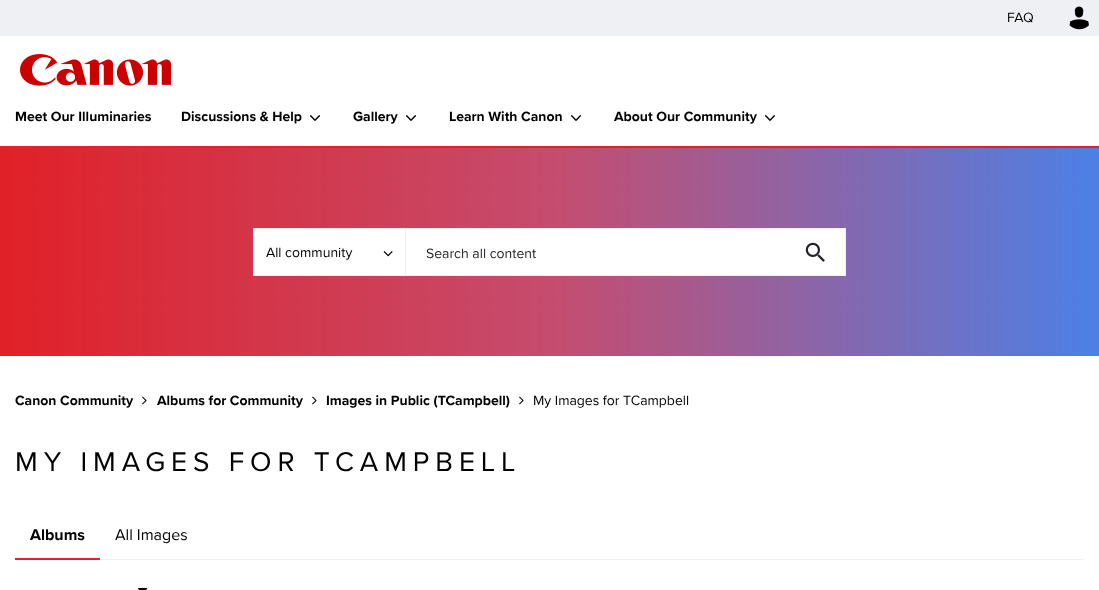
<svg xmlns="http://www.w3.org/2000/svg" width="1099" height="590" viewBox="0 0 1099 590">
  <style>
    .t1 { font: 14px Proxima Nova; fill: #000; }
    .t2 { font: bold 14px Proxima Nova; fill: #000; }
    .t3 { font: 14px Proxima Nova; fill: #24252a; }
    .t4 { font: 28px Proxima Nova; letter-spacing: 6px; fill: #000; }
    .t5 { font: bold 16px Proxima Nova; fill: #000; }
    .t6 { font: 16px Proxima Nova; fill: #000; }
  </style>
  <rect width="100%" height="100%" fill="#fff"/>
  <rect x="0" y="0" width="1099" height="36" fill="#eff0f3"/>
  <text x="1007" y="22" class="t1">FAQ</text>
  <image x="1069" y="6" width="20" height="24" href="images/1.png"/>
  <image x="20" y="54" width="151" height="32" href="images/2.png"/>
  <rect x="0" y="146" width="1099" height="2" fill="#e22128"/>
  <text x="15" y="121" class="t2">Meet Our Illuminaries</text>
  <text x="181" y="121" class="t2">Discussions &amp; Help</text>
  <image x="310" y="115" width="10" height="6" href="images/3.png"/>
  <text x="353" y="121" class="t2">Gallery</text>
  <image x="406" y="115" width="10" height="6" href="images/3.png"/>
  <text x="449" y="121" class="t2">Learn With Canon</text>
  <image x="571" y="115" width="10" height="6" href="images/3.png"/>
  <text x="614" y="121" class="t2">About Our Community</text>
  <image x="765" y="115" width="10" height="6" href="images/3.png"/>
  <image x="0" y="148" width="1099" height="208" href="images/4.png"/>
  <rect x="254" y="229" width="151" height="46" fill="#fff"/>
  <rect x="253" y="228" width="152" height="1" fill="#eff0f3"/>
  <rect x="253" y="275" width="152" height="1" fill="#eff0f3"/>
  <rect x="253" y="228" width="1" height="48" fill="#eff0f3"/>
  <text x="266" y="257" class="t1">All community</text>
  <image x="383" y="251" width="10" height="6" href="images/5.png"/>
  <rect x="405.5" y="228.5" width="440" height="47" fill="#fff" stroke="#eff0f3"/>
  <text x="426" y="258" class="t3">Search all content</text>
  <image x="805" y="242" width="20" height="20" href="images/6.png"/>
  <text x="15" y="405" class="t2">Canon Community</text>
  <image x="142" y="396" width="5" height="9" href="images/7.png"/>
  <text x="157" y="405" class="t2">Albums for Community</text>
  <image x="312" y="396" width="5" height="9" href="images/7.png"/>
  <text x="326" y="405" class="t2">Images in Public (TCampbell)</text>
  <image x="519" y="396" width="5" height="9" href="images/7.png"/>
  <text x="533" y="405" class="t1">My Images for TCampbell</text>
  <text x="15" y="471" class="t4">MY IMAGES FOR TCAMPBELL</text>
  <rect x="100" y="559" width="984" height="1" fill="#eff0f3"/>
  <rect x="15" y="558" width="85" height="2" fill="#e22128"/>
  <text x="30" y="540" class="t5">Albums</text>
  <text x="115" y="540" class="t6">All Images</text>
  <image x="138" y="588" width="10" height="2" href="images/8.png"/>
</svg>
